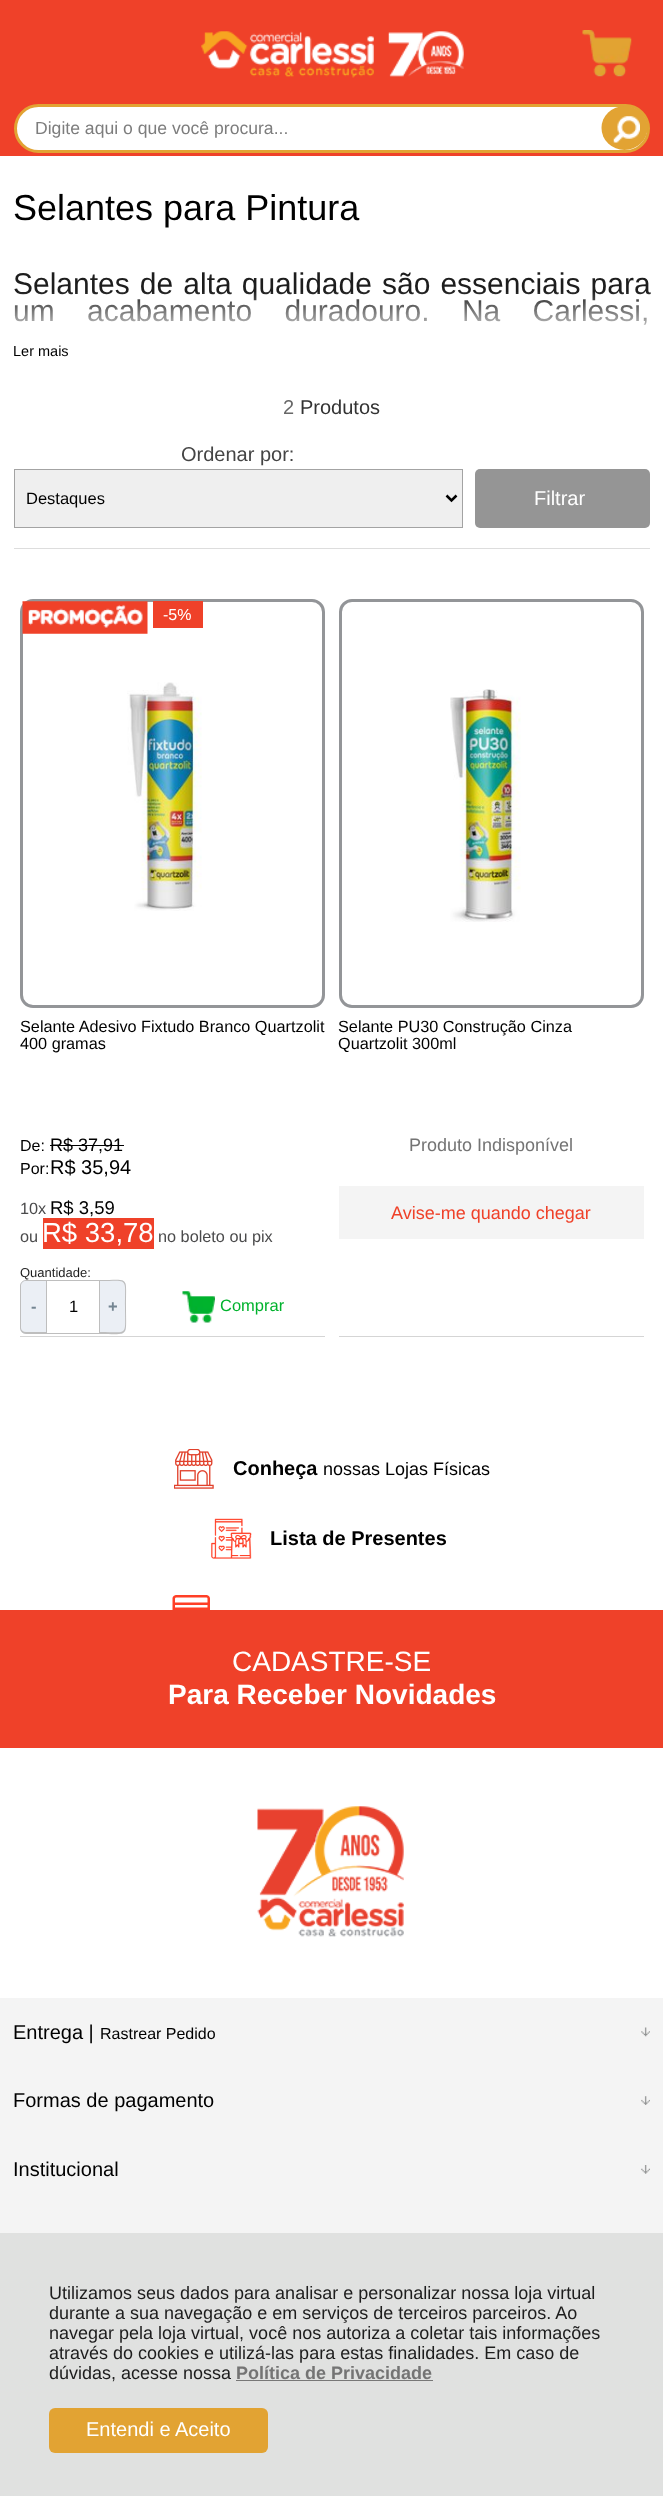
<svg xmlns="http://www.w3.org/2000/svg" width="663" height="2496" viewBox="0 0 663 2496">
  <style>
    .t1 { font: 17.6px Liberation Sans; fill: #7d7d7d; }
    .t2 { font: 36px Liberation Sans; fill: #000; }
    .t3 { font: 30px Liberation Sans; fill: #1d1d1d; }
    .t4 { font: 14.5px Liberation Sans; fill: #000; }
    .t5 { font: 20px Liberation Sans; fill: #686868; }
    .t6 { font: 20px Liberation Sans; fill: #333; }
    .t7 { font: 20px Liberation Sans; fill: #444; }
    .t8 { font: 16.5px Liberation Sans; fill: #000; }
    .t9 { font: 20px Liberation Sans; fill: #fff; }
    .t10 { font: 16px Liberation Sans; fill: #fff; }
    .t11 { font: 16.25px Liberation Sans; fill: #000; }
    .t12 { font: 16px Liberation Sans; fill: #000; }
    .t13 { font: 18px Liberation Sans; fill: #000; }
    .t14 { font: 20px Liberation Sans; fill: #000; }
    .t15 { font: 16.25px Liberation Sans; fill: #4b4b4c; }
    .t16 { font: 18.5px Liberation Sans; fill: #000; }
    .t17 { font: 27.5px Liberation Sans; fill: #fff; }
    .t18 { font: 13px Liberation Sans; fill: #1d1d1d; }
    .t19 { font: bold 16.5px Liberation Sans; fill: #748592; }
    .t20 { font: 16.5px Liberation Sans; fill: #00b22d; }
    .t21 { font: 18px Liberation Sans; fill: #747474; }
    .t22 { font: 18px Liberation Sans; fill: #ef4129; }
    .t23 { font: bold 20px Liberation Sans; fill: #000; }
    .t24 { font: 28px Liberation Sans; fill: #fff; }
    .t25 { font: bold 28px Liberation Sans; fill: #fff; }
    .t26 { font: 18px Liberation Sans; fill: #1d1d1d; }
    .t27 { font: bold 18px Liberation Sans; fill: #747474; }
  </style>
  <defs>
    <linearGradient id="g1" gradientUnits="userSpaceOnUse" x1="332" y1="291" x2="332" y2="341"><stop offset="0" stop-color="#fff" stop-opacity="0"/><stop offset="1" stop-color="#fff"/></linearGradient>
  </defs>
  <rect width="100%" height="100%" fill="#fff"/>
  <rect x="0" y="0" width="663" height="156" fill="#ef4129"/>
  <image x="201" y="31" width="263" height="47" href="images/1.png"/>
  <image x="582" y="30" width="50" height="47" href="images/2.png"/>
  <rect x="15.5" y="105.5" width="633" height="46" rx="23" fill="#fff" stroke="#e2a333" stroke-width="3"/>
  <text x="35" y="134" class="t1">Digite aqui o que você procura...</text>
  <ellipse cx="624.5" cy="128" rx="23" ry="22" fill="#e2a333"/>
  <image x="613" y="116" width="27" height="27" href="images/3.png"/>
  <text x="13" y="220" class="t2">Selantes para Pintura</text>
  <text x="13" y="294" word-spacing="1.75" class="t3">Selantes de alta qualidade são essenciais para</text>
  <text x="13" y="321" word-spacing="24" class="t3">um acabamento duradouro. Na Carlessi,</text>
  <rect x="15" y="292" width="635" height="33" fill="url(#g1)"/>
  <text x="13" y="356" class="t4">Ler mais</text>
  <rect x="14" y="548" width="636" height="1" fill="#ddd"/>
  <text x="283" y="414" class="t5">2</text>
  <text x="300" y="414" class="t6">Produtos</text>
  <text x="181" y="461" class="t7">Ordenar por:</text>
  <rect x="14.5" y="469.5" width="448" height="58" fill="#efefef" stroke="#a3a3a3"/>
  <path d="M446.5 495.5L451.5 500.5L456.5 495.5" fill="none" stroke="#000" stroke-width="2.5"/>
  <text x="26" y="504" class="t8">Destaques</text>
  <rect x="475" y="469" width="175" height="59" rx="5" fill="#959595"/>
  <text x="534" y="505" class="t9">Filtrar</text>
  <rect x="20" y="1336" width="305" height="1" fill="#d5d5d5"/>
  <rect x="21.5" y="600.5" width="302" height="406" rx="11.5" fill="none" stroke="#939598" stroke-width="3"/>
  <image x="22" y="601" width="126" height="33" href="images/4.png"/>
  <rect x="153" y="601" width="50" height="27" fill="#ef4129"/>
  <text x="163" y="620" class="t10">-5%</text>
  <image x="127" y="682" width="75" height="229" href="images/5.png"/>
  <text x="20" y="1032" class="t11">Selante Adesivo Fixtudo Branco Quartzolit</text>
  <text x="20" y="1049" class="t11">400 gramas</text>
  <text x="20" y="1151" class="t12">De:</text>
  <text x="50" y="1151" class="t13">R$ 37,91</text>
  <rect x="50" y="1145" width="74" height="1" fill="#000"/>
  <text x="20" y="1174" class="t12">Por:</text>
  <text x="50" y="1174" class="t14">R$ 35,94</text>
  <text x="20" y="1214" class="t15">10x</text>
  <text x="50" y="1214" class="t16">R$ 3,59</text>
  <text x="20" y="1242" class="t15">ou</text>
  <rect x="43" y="1218" width="111" height="31" fill="#ef4129"/>
  <text x="42" y="1242" class="t17">R$ 33,78</text>
  <text x="158" y="1242" class="t15">no boleto ou pix</text>
  <text x="20" y="1277" class="t18">Quantidade:</text>
  <path d="M26 1280H46V1334H26C22.5 1334 20 1331.5 20 1328V1286C20 1282.5 22.5 1280 26 1280Z" fill="#ebeff5"/>
  <path d="M26 1280H46V1334H26C23 1334 20 1331 20 1328V1286C20 1283 23 1280 26 1280ZM26 1281H46V1332H26C23 1332 21 1330 21 1328V1286C21 1283 23 1281 26 1281Z" fill="#bebebe" fill-rule="evenodd"/>
  <text x="31" y="1312" class="t19">-</text>
  <rect x="46.5" y="1280.5" width="53" height="53" fill="none" stroke="#bebebe"/>
  <text x="69" y="1312" class="t8">1</text>
  <path d="M100 1280H120C123.5 1280 126 1282.5 126 1286V1328C126 1331.5 123.5 1334 120 1334H100Z" fill="#ebeff5"/>
  <path d="M100 1280C130 1280 126 1275 126 1307C126 1338 130 1334 100 1334ZM100 1281C129 1281 125 1276 125 1307C125 1337 129 1332 100 1332Z" fill="#bebebe" fill-rule="evenodd"/>
  <text x="108" y="1312" class="t19">+</text>
  <image x="182" y="1291" width="33" height="32" href="images/6.png"/>
  <text x="220" y="1311" class="t20">Comprar</text>
  <rect x="339" y="1336" width="305" height="1" fill="#d5d5d5"/>
  <rect x="340.5" y="600.5" width="302" height="406" rx="11.5" fill="none" stroke="#939598" stroke-width="3"/>
  <image x="450" y="689" width="71" height="233" href="images/7.png"/>
  <text x="338" y="1032" class="t11">Selante PU30 Construção Cinza</text>
  <text x="338" y="1049" class="t11">Quartzolit 300ml</text>
  <text x="409" y="1151" class="t21">Produto Indisponível</text>
  <rect x="339" y="1186" width="305" height="53" fill="#f4f4f4"/>
  <text x="391" y="1219" class="t22">Avise-me quando chegar</text>
  <image x="174" y="1449" width="40" height="40" href="images/8.png"/>
  <text x="233" y="1475" class="t23">Conheça</text>
  <text x="323" y="1475" class="t13">nossas Lojas Físicas</text>
  <image x="211" y="1518" width="41" height="41" href="images/9.png"/>
  <text x="270" y="1545" class="t23">Lista de Presentes</text>
  <image x="172" y="1595" width="38" height="15" href="images/10.png"/>
  <rect x="0" y="1610" width="663" height="138" fill="#ef4129"/>
  <text x="232" y="1671" class="t24">CADASTRE-SE</text>
  <text x="168" y="1704" class="t25">Para Receber Novidades</text>
  <image x="257" y="1806" width="147" height="131" href="images/11.png"/>
  <rect x="0" y="1998" width="663" height="235" fill="#f4f4f4"/>
  <text x="13" y="2039" class="t14">Entrega |</text>
  <text x="100" y="2039" class="t12">Rastrear Pedido</text>
  <image x="641" y="2027" width="9" height="10" href="images/12.png"/>
  <text x="13" y="2107" class="t14">Formas de pagamento</text>
  <image x="641" y="2096" width="9" height="9" href="images/13.png"/>
  <text x="13" y="2176" class="t14">Institucional</text>
  <image x="641" y="2165" width="9" height="9" href="images/14.png"/>
  <rect x="0" y="2233" width="663" height="263" fill="#e0e1e0"/>
  <text x="49" y="2299" class="t26">Utilizamos seus dados para analisar e personalizar nossa loja virtual</text>
  <text x="49" y="2319" class="t26">durante a sua navegação e em serviços de terceiros parceiros. Ao</text>
  <text x="49" y="2339" class="t26">navegar pela loja virtual, você nos autoriza a coletar tais informações</text>
  <text x="49" y="2359" class="t26">através do cookies e utilizá-las para estas finalidades. Em caso de</text>
  <text x="49" y="2379" class="t26">dúvidas, acesse nossa</text>
  <text x="236" y="2379" class="t27">Política de Privacidade</text>
  <rect x="236" y="2380" width="197" height="1" fill="#777"/>
  <rect x="49" y="2408" width="219" height="45" rx="6" fill="#e2a333"/>
  <text x="86" y="2436" class="t9">Entendi e Aceito</text>
</svg>
